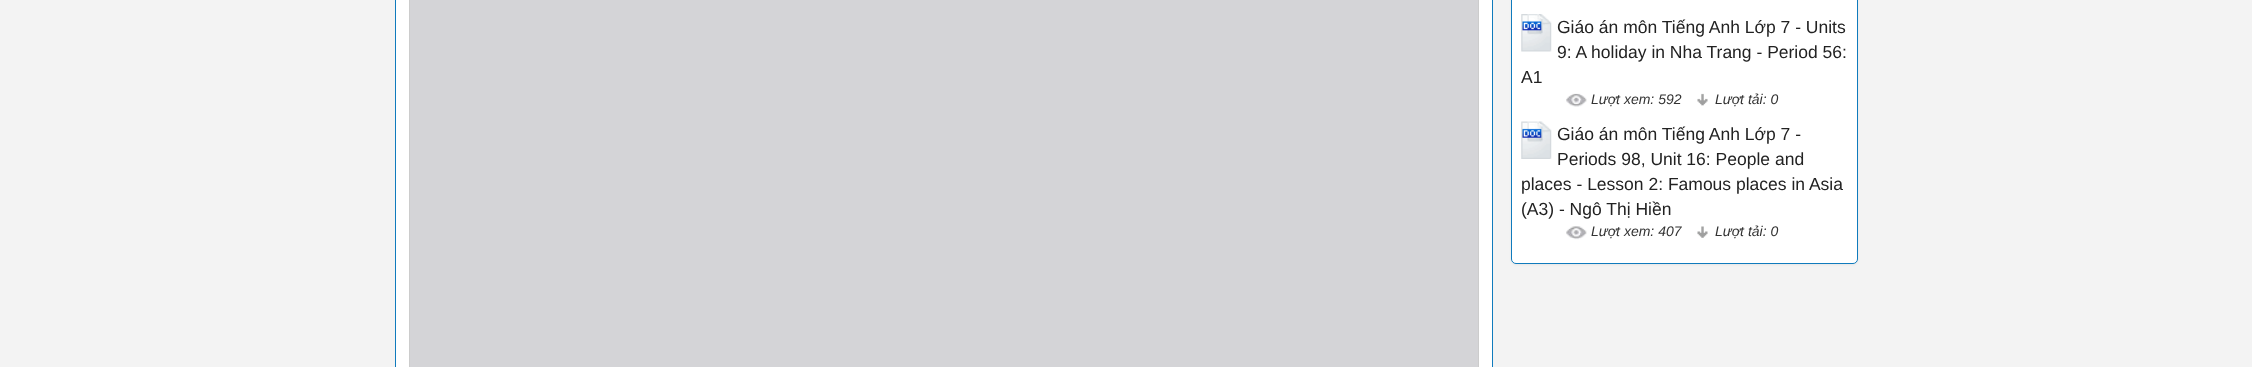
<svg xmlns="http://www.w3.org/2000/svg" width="2252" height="367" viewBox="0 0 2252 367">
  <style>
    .t1 { font: 17.5px Liberation Sans; fill: #222; }
    .t2 { font: italic 14px Liberation Sans; fill: #333; }
  </style>
  <rect width="100%" height="100%" fill="#f3f3f3"/>
  <rect x="395.5" y="-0.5" width="1097" height="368" fill="#fff" stroke="#107bbd"/>
  <rect x="409.5" y="-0.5" width="1069" height="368" fill="none" stroke="#ccc"/>
  <rect x="410" y="0" width="1068" height="367" fill="#d4d4d7"/>
  <rect x="1511" y="-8" width="347" height="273" rx="5" fill="#0000000d" filter="blur(1px)"/>
  <rect x="1511.5" y="-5.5" width="346" height="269" rx="4.5" fill="#fff" stroke="#107bbd"/>
  <image x="1521" y="14" width="31" height="38" href="images/1.png"/>
  <text x="1557" y="33" class="t1">Giáo án môn Tiếng Anh Lớp 7 - Units</text>
  <text x="1557" y="58" class="t1">9: A holiday in Nha Trang - Period 56:</text>
  <text x="1521" y="83" class="t1">A1</text>
  <image x="1566" y="93" width="21" height="14" href="images/2.png"/>
  <text x="1591" y="104" class="t2">Lượt xem: 592</text>
  <image x="1697" y="93" width="11" height="13" href="images/3.png"/>
  <text x="1715" y="104" class="t2">Lượt tải: 0</text>
  <image x="1521" y="121" width="31" height="38" href="images/4.png"/>
  <text x="1557" y="140" class="t1">Giáo án môn Tiếng Anh Lớp 7 -</text>
  <text x="1557" y="165" class="t1">Periods 98, Unit 16: People and</text>
  <text x="1521" y="190" class="t1">places - Lesson 2: Famous places in Asia</text>
  <text x="1521" y="215" class="t1">(A3) - Ngô Thị Hiền</text>
  <image x="1566" y="226" width="21" height="14" href="images/5.png"/>
  <text x="1591" y="236" class="t2">Lượt xem: 407</text>
  <image x="1697" y="226" width="11" height="12" href="images/6.png"/>
  <text x="1715" y="236" class="t2">Lượt tải: 0</text>
</svg>
